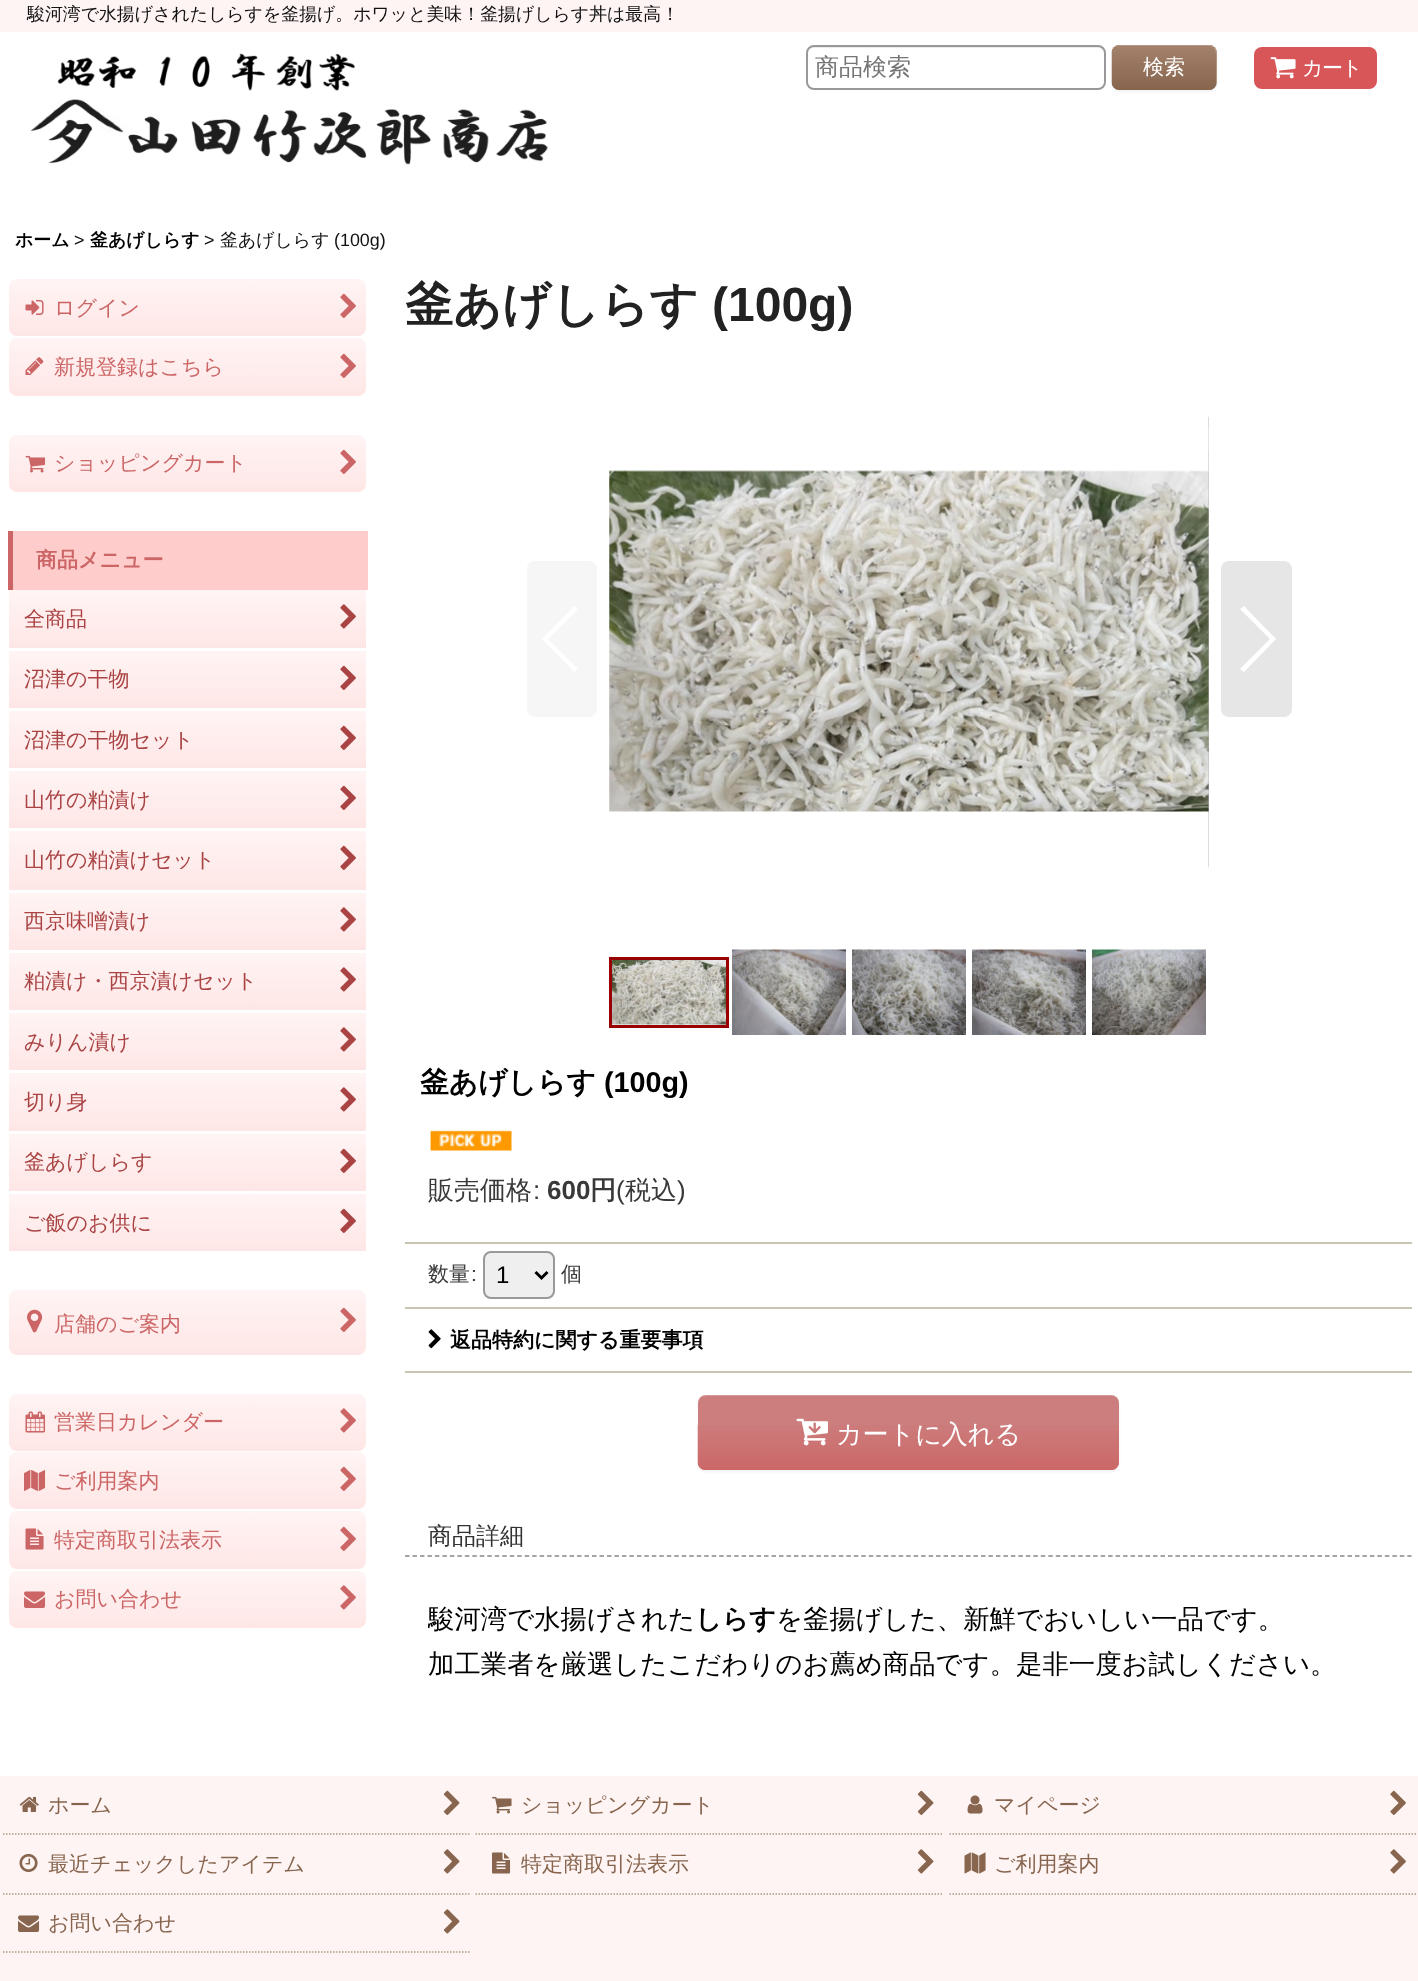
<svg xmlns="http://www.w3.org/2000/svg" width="1418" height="1981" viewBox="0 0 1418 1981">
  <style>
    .t1 { font: 500 17.9px WenQuanYi Zen Hei; fill: #111; }
    .t2 { font: 500 24px WenQuanYi Zen Hei; fill: #757575; }
    .t3 { font: 500 21px WenQuanYi Zen Hei; fill: #fff; }
    .t4 { font: 500 21px WenQuanYi Zen Hei; letter-spacing: -1.5px; fill: #fff; }
    .t5 { font: bold 17.9px WenQuanYi Zen Hei; fill: #000; }
    .t6 { font: 17.9px Liberation Sans; fill: #111; }
    .t7 { font: 500 21px WenQuanYi Zen Hei; fill: #c66; }
    .t8 { font: bold 21px WenQuanYi Zen Hei; fill: #c66; }
    .t9 { font: 500 21px WenQuanYi Zen Hei; fill: #a44; }
    .t10 { font: bold 48px WenQuanYi Zen Hei; fill: #222; }
    .t11 { font: bold 48px Liberation Sans; fill: #222; }
    .t12 { font: bold 28.75px WenQuanYi Zen Hei; fill: #000; }
    .t13 { font: bold 28.75px Liberation Sans; fill: #000; }
    .t14 { font: 500 26px WenQuanYi Zen Hei; fill: #393939; }
    .t15 { font: 26px Liberation Sans; fill: #393939; }
    .t16 { font: bold 26px Liberation Sans; fill: #393939; }
    .t17 { font: bold 26px WenQuanYi Zen Hei; fill: #393939; }
    .t18 { font: 500 21px WenQuanYi Zen Hei; fill: #393939; }
    .t19 { font: 21px Liberation Sans; fill: #393939; }
    .t20 { font: 24px Liberation Sans; fill: #000; }
    .t21 { font: bold 21px WenQuanYi Zen Hei; fill: #000; }
    .t22 { font: 500 26px WenQuanYi Zen Hei; fill: #fff; }
    .t23 { font: 500 24px WenQuanYi Zen Hei; fill: #333; }
    .t24 { font: 500 26.4px WenQuanYi Zen Hei; fill: #000; }
    .t25 { font: bold 26.4px WenQuanYi Zen Hei; fill: #000; }
    .t26 { font: 500 21px WenQuanYi Zen Hei; fill: #87654e; }
  </style>
  <defs>
    <linearGradient id="g1" gradientUnits="userSpaceOnUse" x1="188" y1="279" x2="188" y2="336"><stop offset="0" stop-color="#fff4f4"/><stop offset="1" stop-color="#ffe6e6"/></linearGradient>
    <linearGradient id="g2" gradientUnits="userSpaceOnUse" x1="188" y1="338" x2="188" y2="396"><stop offset="0" stop-color="#fff4f4"/><stop offset="1" stop-color="#ffe6e6"/></linearGradient>
    <linearGradient id="g3" gradientUnits="userSpaceOnUse" x1="188" y1="435" x2="188" y2="492"><stop offset="0" stop-color="#fff4f4"/><stop offset="1" stop-color="#ffe6e6"/></linearGradient>
    <linearGradient id="g4" gradientUnits="userSpaceOnUse" x1="188" y1="590" x2="188" y2="648"><stop offset="0" stop-color="#fff4f4"/><stop offset="1" stop-color="#ffe6e6"/></linearGradient>
    <linearGradient id="g5" gradientUnits="userSpaceOnUse" x1="188" y1="651" x2="188" y2="708"><stop offset="0" stop-color="#fff4f4"/><stop offset="1" stop-color="#ffe6e6"/></linearGradient>
    <linearGradient id="g6" gradientUnits="userSpaceOnUse" x1="188" y1="711" x2="188" y2="768"><stop offset="0" stop-color="#fff4f4"/><stop offset="1" stop-color="#ffe6e6"/></linearGradient>
    <linearGradient id="g7" gradientUnits="userSpaceOnUse" x1="188" y1="771" x2="188" y2="828"><stop offset="0" stop-color="#fff4f4"/><stop offset="1" stop-color="#ffe6e6"/></linearGradient>
    <linearGradient id="g8" gradientUnits="userSpaceOnUse" x1="188" y1="831" x2="188" y2="890"><stop offset="0" stop-color="#fff4f4"/><stop offset="1" stop-color="#ffe6e6"/></linearGradient>
    <linearGradient id="g9" gradientUnits="userSpaceOnUse" x1="188" y1="893" x2="188" y2="950"><stop offset="0" stop-color="#fff4f4"/><stop offset="1" stop-color="#ffe6e6"/></linearGradient>
    <linearGradient id="g10" gradientUnits="userSpaceOnUse" x1="188" y1="953" x2="188" y2="1010"><stop offset="0" stop-color="#fff4f4"/><stop offset="1" stop-color="#ffe6e6"/></linearGradient>
    <linearGradient id="g11" gradientUnits="userSpaceOnUse" x1="188" y1="1013" x2="188" y2="1070"><stop offset="0" stop-color="#fff4f4"/><stop offset="1" stop-color="#ffe6e6"/></linearGradient>
    <linearGradient id="g12" gradientUnits="userSpaceOnUse" x1="188" y1="1073" x2="188" y2="1131"><stop offset="0" stop-color="#fff4f4"/><stop offset="1" stop-color="#ffe6e6"/></linearGradient>
    <linearGradient id="g13" gradientUnits="userSpaceOnUse" x1="188" y1="1134" x2="188" y2="1191"><stop offset="0" stop-color="#fff4f4"/><stop offset="1" stop-color="#ffe6e6"/></linearGradient>
    <linearGradient id="g14" gradientUnits="userSpaceOnUse" x1="188" y1="1194" x2="188" y2="1251"><stop offset="0" stop-color="#fff4f4"/><stop offset="1" stop-color="#ffe6e6"/></linearGradient>
    <linearGradient id="g15" gradientUnits="userSpaceOnUse" x1="188" y1="1290" x2="188" y2="1355"><stop offset="0" stop-color="#fff4f4"/><stop offset="1" stop-color="#ffe6e6"/></linearGradient>
    <linearGradient id="g16" gradientUnits="userSpaceOnUse" x1="188" y1="1394" x2="188" y2="1451"><stop offset="0" stop-color="#fff4f4"/><stop offset="1" stop-color="#ffe6e6"/></linearGradient>
    <linearGradient id="g17" gradientUnits="userSpaceOnUse" x1="188" y1="1452" x2="188" y2="1509"><stop offset="0" stop-color="#fff4f4"/><stop offset="1" stop-color="#ffe6e6"/></linearGradient>
    <linearGradient id="g18" gradientUnits="userSpaceOnUse" x1="188" y1="1511" x2="188" y2="1569"><stop offset="0" stop-color="#fff4f4"/><stop offset="1" stop-color="#ffe6e6"/></linearGradient>
    <linearGradient id="g19" gradientUnits="userSpaceOnUse" x1="188" y1="1571" x2="188" y2="1628"><stop offset="0" stop-color="#fff4f4"/><stop offset="1" stop-color="#ffe6e6"/></linearGradient>
    <clipPath id="clip1"><rect x="428" y="1572" width="961" height="143"/></clipPath>
  </defs>
  <rect width="100%" height="100%" fill="#fff"/>
  <rect x="0" y="0" width="1418" height="32" fill="#fff4f4"/>
  <text x="27" y="20" class="t1">駿河湾で水揚げされたしらすを釜揚げ。ホワッと美味！釜揚げしらす丼は最高！</text>
  <path d="M813 48H1098C1101 48 1104 51 1104 54C1104 50 1102 47 1098 47H813C809 47 807 50 807 54C807 51 810 48 813 48Z" fill="#ececec"/>
  <rect x="807" y="46" width="298" height="43" rx="7" fill="none" stroke="#999" stroke-width="2"/>
  <text x="815" y="75" class="t2">商品検索</text>
  <rect x="1112" y="47" width="105" height="45" rx="8" fill="#0000000d" filter="blur(1.5px)"/>
  <rect x="1112" y="45" width="105" height="45" rx="8" fill="#a28069"/>
  <image x="1111" y="45" width="106" height="45" href="images/1.png"/>
  <path d="M1119 46H1209C1218 46 1216 59 1216 64V86C1216 85 1217 84 1217 82V53C1217 49 1213 45 1209 45H1120C1116 45 1112 49 1112 53V54C1112 50 1115 46 1119 46Z" fill="#ffffff33"/>
  <text x="1143" y="74" class="t3">検索</text>
  <image x="30" y="53" width="518" height="112" href="images/2.png"/>
  <rect x="1254" y="47" width="123" height="42" rx="8" fill="#d85658"/>
  <image x="1270" y="57" width="26" height="22" href="images/3.png"/>
  <text x="1302" y="75" class="t4">カート</text>
  <text x="15" y="246" class="t5">ホーム</text>
  <text x="74" y="246" class="t6">&gt;</text>
  <text x="90" y="246" class="t5">釜あげしらす</text>
  <text x="204" y="246" class="t6">&gt;</text>
  <text x="220" y="246" class="t1">釜あげしらす</text>
  <text x="334" y="246" class="t6">(100g)</text>
  <rect x="9" y="279" width="357" height="57" rx="8" fill="url(#g1)"/>
  <image x="25" y="299" width="19" height="16" href="images/4.png"/>
  <text x="54" y="315" class="t7">ログイン</text>
  <image x="340" y="293" width="16" height="25" href="images/5.png"/>
  <rect x="9" y="338" width="357" height="58" rx="8" fill="url(#g2)"/>
  <image x="25" y="357" width="19" height="18" href="images/6.png"/>
  <text x="54" y="374" class="t7">新規登録はこちら</text>
  <image x="340" y="353" width="16" height="25" href="images/7.png"/>
  <rect x="9" y="435" width="357" height="57" rx="8" fill="url(#g3)"/>
  <image x="25" y="455" width="21" height="18" href="images/8.png"/>
  <text x="54" y="470" class="t7">ショッピングカート</text>
  <image x="340" y="449" width="16" height="25" href="images/5.png"/>
  <rect x="13" y="531" width="355" height="59" fill="#fcc"/>
  <rect x="8" y="531" width="5" height="59" fill="#c66"/>
  <text x="36" y="567" class="t8">商品メニュー</text>
  <rect x="9" y="590" width="357" height="58" fill="url(#g4)"/>
  <text x="24" y="626" class="t9">全商品</text>
  <image x="340" y="604" width="16" height="25" href="images/9.png"/>
  <rect x="9" y="651" width="357" height="57" fill="url(#g5)"/>
  <text x="24" y="686" class="t9">沼津の干物</text>
  <image x="340" y="665" width="16" height="25" href="images/10.png"/>
  <rect x="9" y="711" width="357" height="57" fill="url(#g6)"/>
  <text x="24" y="747" class="t9">沼津の干物セット</text>
  <image x="340" y="725" width="16" height="25" href="images/10.png"/>
  <rect x="9" y="771" width="357" height="57" fill="url(#g7)"/>
  <text x="24" y="807" class="t9">山竹の粕漬け</text>
  <image x="340" y="785" width="16" height="25" href="images/10.png"/>
  <rect x="9" y="831" width="357" height="59" fill="url(#g8)"/>
  <text x="24" y="867" class="t9">山竹の粕漬けセット</text>
  <image x="340" y="845" width="16" height="25" href="images/11.png"/>
  <rect x="9" y="893" width="357" height="57" fill="url(#g9)"/>
  <text x="24" y="928" class="t9">西京味噌漬け</text>
  <image x="340" y="907" width="16" height="25" href="images/12.png"/>
  <rect x="9" y="953" width="357" height="57" fill="url(#g10)"/>
  <text x="24" y="988" class="t9">粕漬け・西京漬けセット</text>
  <image x="340" y="967" width="16" height="25" href="images/12.png"/>
  <rect x="9" y="1013" width="357" height="57" fill="url(#g11)"/>
  <text x="24" y="1049" class="t9">みりん漬け</text>
  <image x="340" y="1027" width="16" height="25" href="images/12.png"/>
  <rect x="9" y="1073" width="357" height="58" fill="url(#g12)"/>
  <text x="24" y="1109" class="t9">切り身</text>
  <image x="340" y="1087" width="16" height="25" href="images/9.png"/>
  <rect x="9" y="1134" width="357" height="57" fill="url(#g13)"/>
  <text x="24" y="1169" class="t9">釜あげしらす</text>
  <image x="340" y="1148" width="16" height="25" href="images/10.png"/>
  <rect x="9" y="1194" width="357" height="57" fill="url(#g14)"/>
  <text x="24" y="1230" class="t9">ご飯のお供に</text>
  <image x="340" y="1208" width="16" height="25" href="images/10.png"/>
  <rect x="9" y="1290" width="357" height="65" rx="8" fill="url(#g15)"/>
  <image x="27" y="1309" width="16" height="24" href="images/13.png"/>
  <text x="54" y="1331" class="t7">店舗のご案内</text>
  <image x="340" y="1307" width="16" height="25" href="images/14.png"/>
  <rect x="9" y="1394" width="357" height="57" rx="8" fill="url(#g16)"/>
  <image x="25" y="1411" width="21" height="22" href="images/15.png"/>
  <text x="54" y="1429" class="t7">営業日カレンダー</text>
  <image x="340" y="1408" width="16" height="25" href="images/16.png"/>
  <rect x="9" y="1452" width="357" height="57" rx="8" fill="url(#g17)"/>
  <image x="24" y="1470" width="22" height="21" href="images/17.png"/>
  <text x="54" y="1488" class="t7">ご利用案内</text>
  <image x="340" y="1466" width="16" height="25" href="images/5.png"/>
  <rect x="9" y="1511" width="357" height="58" rx="8" fill="url(#g18)"/>
  <image x="25" y="1528" width="19" height="22" href="images/18.png"/>
  <text x="54" y="1547" class="t7">特定商取引法表示</text>
  <image x="340" y="1526" width="16" height="25" href="images/7.png"/>
  <rect x="9" y="1571" width="357" height="57" rx="8" fill="url(#g19)"/>
  <image x="24" y="1591" width="22" height="17" href="images/19.png"/>
  <text x="54" y="1606" class="t7">お問い合わせ</text>
  <image x="340" y="1585" width="16" height="25" href="images/16.png"/>
  <text x="405" y="321" class="t10">釜あげしらす</text>
  <text x="712" y="321" class="t11">(100g)</text>
  <image x="609" y="470" width="600" height="342" href="images/21.png"/>
  <image x="1208" y="416" width="1" height="452" href="images/20.png"/>
  <rect x="527" y="561" width="70" height="156" rx="8" fill="#f6f6f6"/>
  <path d="M542 639L574 606L578 609L548 639L578 669L574 672Z" fill="#fff"/>
  <rect x="1221" y="561" width="71" height="156" rx="8" fill="#e6e6e6"/>
  <path d="M1276 639L1244 672L1240 669L1270 639L1240 609L1244 606Z" fill="#fff"/>
  <rect x="610.5" y="958.5" width="117" height="68" fill="none" stroke="#900" stroke-width="3"/>
  <image x="612" y="960" width="114" height="65" href="images/22.png"/>
  <image x="732" y="949" width="114" height="86" href="images/23.png"/>
  <image x="852" y="949" width="114" height="86" href="images/24.png"/>
  <image x="972" y="949" width="114" height="86" href="images/25.png"/>
  <image x="1092" y="949" width="114" height="86" href="images/26.png"/>
  <text x="420" y="1092" class="t12">釜あげしらす</text>
  <text x="604" y="1092" class="t13">(100g)</text>
  <image x="430" y="1130" width="82" height="21" href="images/27.png"/>
  <rect x="405" y="1242" width="1007" height="2" fill="#cac5b3"/>
  <text x="428" y="1199" class="t14">販売価格</text>
  <text x="533" y="1199" class="t15">:</text>
  <text x="547" y="1199" class="t16">600</text>
  <text x="590" y="1199" class="t17">円</text>
  <text x="616" y="1199" class="t15">(</text>
  <text x="625" y="1199" class="t14">税込</text>
  <text x="677" y="1199" class="t15">)</text>
  <rect x="405" y="1307" width="1007" height="2" fill="#cac5b3"/>
  <text x="428" y="1281" class="t18">数量</text>
  <text x="471" y="1281" class="t19">:</text>
  <rect x="484" y="1252" width="70" height="46" rx="7" fill="#efefef" stroke="#999" stroke-width="2"/>
  <path d="M535.5 1272L541.5 1278L547.5 1272" fill="none" stroke="#000" stroke-width="3"/>
  <text x="496" y="1283" class="t20">1</text>
  <text x="561" y="1281" class="t18">個</text>
  <rect x="405" y="1371" width="1007" height="2" fill="#cac5b3"/>
  <image x="428" y="1329" width="13" height="20" href="images/28.png"/>
  <text x="450" y="1347" class="t21">返品特約に関する重要事項</text>
  <rect x="698" y="1397" width="421" height="75" rx="8" fill="#0000000d" filter="blur(1.5px)"/>
  <rect x="698" y="1395" width="421" height="75" rx="8" fill="#cc7e7e"/>
  <image x="697" y="1425" width="422" height="45" href="images/29.png"/>
  <path d="M705 1396H1112C1116 1396 1119 1400 1119 1404V1403C1119 1399 1115 1395 1111 1395H706C702 1395 698 1399 698 1403V1404C698 1400 701 1396 705 1396Z" fill="#ffffff33"/>
  <image x="796" y="1418" width="32" height="28" href="images/30.png"/>
  <text x="836" y="1443" class="t22">カートに入れる</text>
  <path d="M405 1556H1411.5" fill="none" stroke="#888" stroke-width="1.5" stroke-dasharray="4.5 2.98"/>
  <text x="428" y="1544" class="t23">商品詳細</text>
  <g clip-path="url(#clip1)">
    <text x="428" y="1628" class="t24">駿河湾で水揚げされた</text>
  </g>
  <text x="695" y="1628" class="t25">しらす</text>
  <text x="776" y="1628" class="t24">を釜揚げした、新鮮でおいしい一品です。</text>
  <text x="428" y="1673" class="t24">加工業者を厳選したこだわりのお薦め商品です。是非一度お試しください。</text>
  <rect x="0" y="1776" width="1418" height="205" fill="#fff4f4"/>
  <path d="M3 1834H469.5" fill="none" stroke="#a69d80" stroke-width="1.5" stroke-dasharray="1.5 1.5"/>
  <image x="19" y="1796" width="20" height="16" href="images/31.png"/>
  <text x="48" y="1812" class="t26">ホーム</text>
  <image x="443" y="1790" width="17" height="25" href="images/32.png"/>
  <path d="M475.5 1834H943.5" fill="none" stroke="#a69d80" stroke-width="1.5" stroke-dasharray="1.5 1.5"/>
  <image x="492" y="1796" width="20" height="18" href="images/33.png"/>
  <text x="521" y="1812" class="t26">ショッピングカート</text>
  <image x="917" y="1790" width="17" height="25" href="images/32.png"/>
  <path d="M949.5 1834H1416" fill="none" stroke="#a69d80" stroke-width="1.5" stroke-dasharray="1.5 1.5"/>
  <image x="967" y="1795" width="16" height="19" href="images/34.png"/>
  <text x="994" y="1812" class="t26">マイページ</text>
  <image x="1390" y="1790" width="16" height="25" href="images/35.png"/>
  <path d="M3 1894H469.5" fill="none" stroke="#a69d80" stroke-width="1.5" stroke-dasharray="1.5 1.5"/>
  <image x="19" y="1853" width="19" height="19" href="images/36.png"/>
  <text x="48" y="1871" class="t26">最近チェックしたアイテム</text>
  <image x="443" y="1849" width="17" height="25" href="images/37.png"/>
  <path d="M475.5 1894H943.5" fill="none" stroke="#a69d80" stroke-width="1.5" stroke-dasharray="1.5 1.5"/>
  <image x="492" y="1852" width="19" height="22" href="images/38.png"/>
  <text x="521" y="1871" class="t26">特定商取引法表示</text>
  <image x="917" y="1849" width="17" height="25" href="images/37.png"/>
  <path d="M949.5 1894H1416" fill="none" stroke="#a69d80" stroke-width="1.5" stroke-dasharray="1.5 1.5"/>
  <image x="964" y="1852" width="22" height="22" href="images/39.png"/>
  <text x="994" y="1871" class="t26">ご利用案内</text>
  <image x="1390" y="1849" width="16" height="25" href="images/40.png"/>
  <path d="M3 1952H469.5" fill="none" stroke="#a69d80" stroke-width="1.5" stroke-dasharray="1.5 1.5"/>
  <image x="18" y="1915" width="22" height="17" href="images/41.png"/>
  <text x="48" y="1930" class="t26">お問い合わせ</text>
  <image x="443" y="1909" width="17" height="25" href="images/37.png"/>
</svg>
